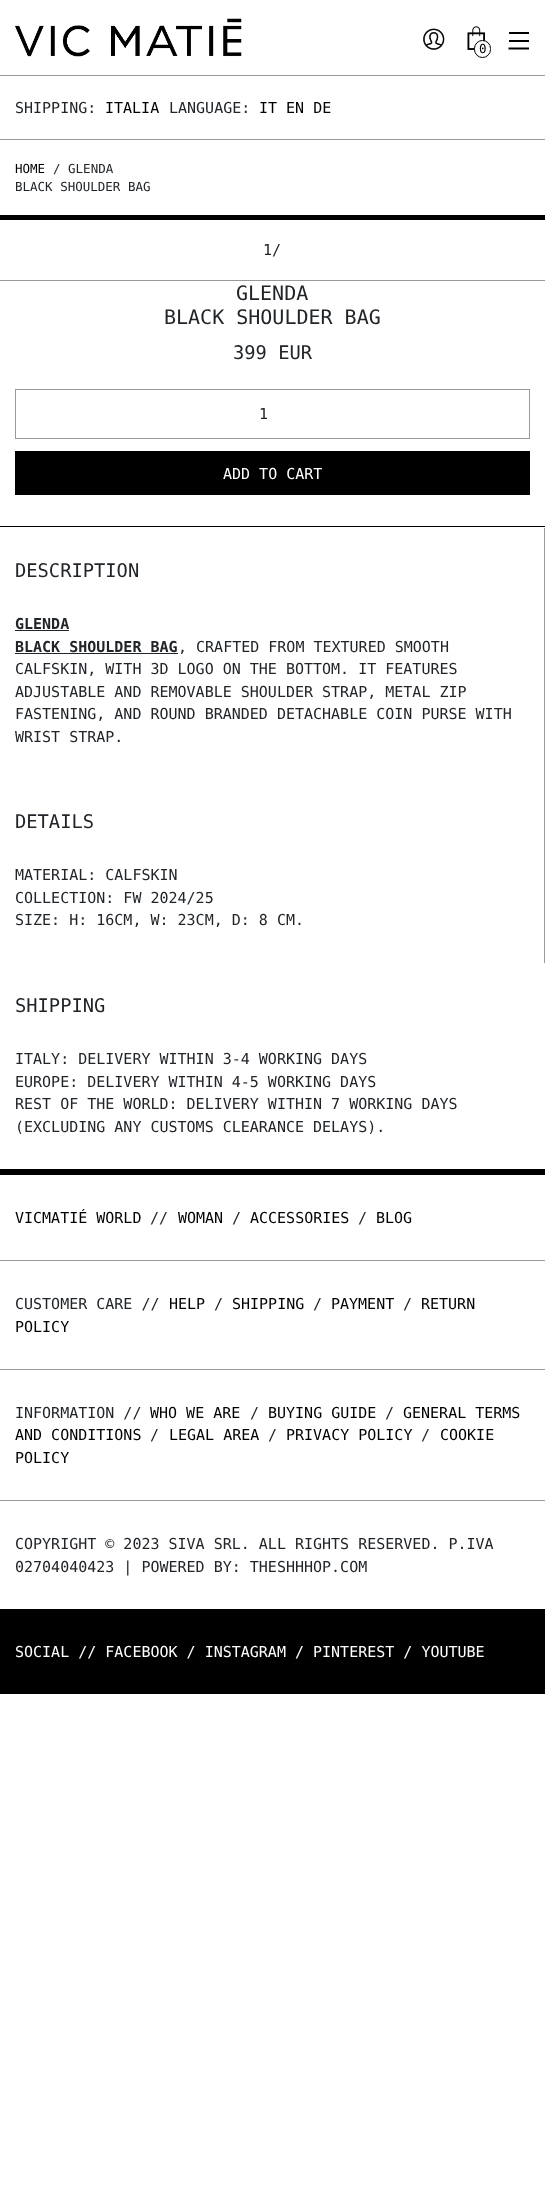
<svg xmlns="http://www.w3.org/2000/svg" width="545" height="2189" viewBox="0 0 545 2189">
  <style>
    .t1 { font: 12.5px DejaVu Sans Mono; fill: #000; }
    .t2 { font: 15px DejaVu Sans Mono; fill: #212529; }
    .t3 { font: 15px DejaVu Sans Mono; fill: #000; }
    .t4 { font: 12.5px DejaVu Sans Mono; fill: #212529; }
    .t5 { font: 20px DejaVu Sans Mono; fill: #212529; }
    .t6 { font: 18.75px DejaVu Sans Mono; fill: #212529; }
    .t7 { font: 15px DejaVu Sans Mono; fill: #fff; }
    .t8 { font: bold 15px DejaVu Sans Mono; fill: #212529; }
  </style>
  <rect width="100%" height="100%" fill="#fff"/>
  <rect x="0" y="75" width="545" height="1" fill="#999"/>
  <image x="15" y="18" width="227" height="39" href="images/1.png"/>
  <image x="423" y="28" width="22" height="22" href="images/2.png"/>
  <rect x="509" y="32" width="20" height="2" fill="#000"/>
  <rect x="509" y="40" width="20" height="2" fill="#000"/>
  <image x="467" y="26" width="18" height="24" href="images/3.png"/>
  <rect x="474.5" y="40.5" width="16" height="17" rx="8" fill="#fff" stroke="#000"/>
  <text x="479" y="53" class="t1">0</text>
  <path d="M508.5 48.5H529" fill="none" stroke="#000" stroke-width="2"/>
  <rect x="0" y="139" width="545" height="1" fill="#999"/>
  <text x="15" y="113" class="t2">SHIPPING:</text>
  <text x="105" y="113" class="t3">ITALIA</text>
  <text x="169" y="113" class="t2">LANGUAGE:</text>
  <text x="259" y="113" class="t3">IT EN DE</text>
  <rect x="0" y="215" width="545" height="5" fill="#000"/>
  <text x="15" y="173" class="t1">HOME</text>
  <text x="53" y="173" class="t4">/ GLENDA</text>
  <text x="15" y="191" class="t4">BLACK SHOULDER BAG</text>
  <rect x="0" y="280" width="545" height="1" fill="#999"/>
  <text x="263" y="255" class="t2">1/</text>
  <text x="236" y="300" class="t5">GLENDA</text>
  <text x="164" y="324" class="t5">BLACK SHOULDER BAG</text>
  <text x="233" y="359" class="t6">399 EUR</text>
  <rect x="15.5" y="389.5" width="514" height="49" fill="none" stroke="#999"/>
  <text x="259" y="419" class="t2">1</text>
  <rect x="15" y="451" width="515" height="44" fill="#000"/>
  <text x="223" y="479" class="t7">ADD TO CART</text>
  <rect x="0" y="526" width="545" height="1" fill="#000"/>
  <rect x="0" y="1169" width="545" height="6" fill="#000"/>
  <rect x="544" y="528" width="1" height="435" fill="#999"/>
  <text x="15" y="577" class="t6">DESCRIPTION</text>
  <text x="15" y="629" class="t8">GLENDA</text>
  <rect x="15" y="630" width="54" height="1" fill="#212529"/>
  <text x="15" y="652" class="t8">BLACK SHOULDER BAG</text>
  <rect x="15" y="653" width="163" height="1" fill="#212529"/>
  <text x="178" y="652" class="t2">, CRAFTED FROM TEXTURED SMOOTH</text>
  <text x="15" y="674" class="t2">CALFSKIN, WITH 3D LOGO ON THE BOTTOM. IT FEATURES</text>
  <text x="15" y="697" class="t2">ADJUSTABLE AND REMOVABLE SHOULDER STRAP, METAL ZIP</text>
  <text x="15" y="719" class="t2">FASTENING, AND ROUND BRANDED DETACHABLE COIN PURSE WITH</text>
  <text x="15" y="742" class="t2">WRIST STRAP.</text>
  <text x="15" y="828" class="t6">DETAILS</text>
  <text x="15" y="880" class="t2">MATERIAL: CALFSKIN</text>
  <text x="15" y="903" class="t2">COLLECTION: FW 2024/25</text>
  <text x="15" y="925" class="t2">SIZE: H: 16CM, W: 23CM, D: 8 CM.</text>
  <text x="15" y="1012" class="t6">SHIPPING</text>
  <text x="15" y="1064" class="t2">ITALY: DELIVERY WITHIN 3-4 WORKING DAYS</text>
  <text x="15" y="1087" class="t2">EUROPE: DELIVERY WITHIN 4-5 WORKING DAYS</text>
  <text x="15" y="1109" class="t2">REST OF THE WORLD: DELIVERY WITHIN 7 WORKING DAYS</text>
  <text x="15" y="1132" class="t2">(EXCLUDING ANY CUSTOMS CLEARANCE DELAYS).</text>
  <rect x="0" y="1260" width="545" height="1" fill="#999"/>
  <text x="15" y="1223" class="t3">VICMATIÉ WORLD</text>
  <text x="150" y="1223" class="t2">//</text>
  <text x="178" y="1223" class="t3">WOMAN</text>
  <text x="232" y="1223" class="t2">/</text>
  <text x="250" y="1223" class="t3">ACCESSORIES</text>
  <text x="358" y="1223" class="t2">/</text>
  <text x="376" y="1223" class="t3">BLOG</text>
  <rect x="0" y="1369" width="545" height="1" fill="#999"/>
  <text x="15" y="1309" class="t2">CUSTOMER CARE //</text>
  <text x="169" y="1309" class="t3">HELP</text>
  <text x="214" y="1309" class="t2">/</text>
  <text x="232" y="1309" class="t3">SHIPPING</text>
  <text x="313" y="1309" class="t2">/</text>
  <text x="331" y="1309" class="t3">PAYMENT</text>
  <text x="403" y="1309" class="t2">/</text>
  <text x="421" y="1309" class="t3">RETURN</text>
  <text x="15" y="1332" class="t3">POLICY</text>
  <rect x="0" y="1500" width="545" height="1" fill="#999"/>
  <text x="15" y="1418" class="t2">INFORMATION //</text>
  <text x="150" y="1418" class="t3">WHO WE ARE</text>
  <text x="250" y="1418" class="t2">/</text>
  <text x="268" y="1418" class="t3">BUYING GUIDE</text>
  <text x="385" y="1418" class="t2">/</text>
  <text x="403" y="1418" class="t3">GENERAL TERMS</text>
  <text x="15" y="1440" class="t3">AND CONDITIONS</text>
  <text x="150" y="1440" class="t2">/</text>
  <text x="169" y="1440" class="t3">LEGAL AREA</text>
  <text x="268" y="1440" class="t2">/</text>
  <text x="286" y="1440" class="t3">PRIVACY POLICY</text>
  <text x="421" y="1440" class="t2">/</text>
  <text x="440" y="1440" class="t3">COOKIE</text>
  <text x="15" y="1463" class="t3">POLICY</text>
  <text x="15" y="1549" class="t2">COPYRIGHT © 2023 SIVA SRL. ALL RIGHTS RESERVED. P.IVA</text>
  <text x="15" y="1572" class="t2">02704040423 | POWERED BY: THESHHHOP.COM</text>
  <rect x="0" y="1609" width="545" height="85" fill="#000"/>
  <text x="15" y="1657" class="t7">SOCIAL // FACEBOOK / INSTAGRAM / PINTEREST / YOUTUBE</text>
</svg>
